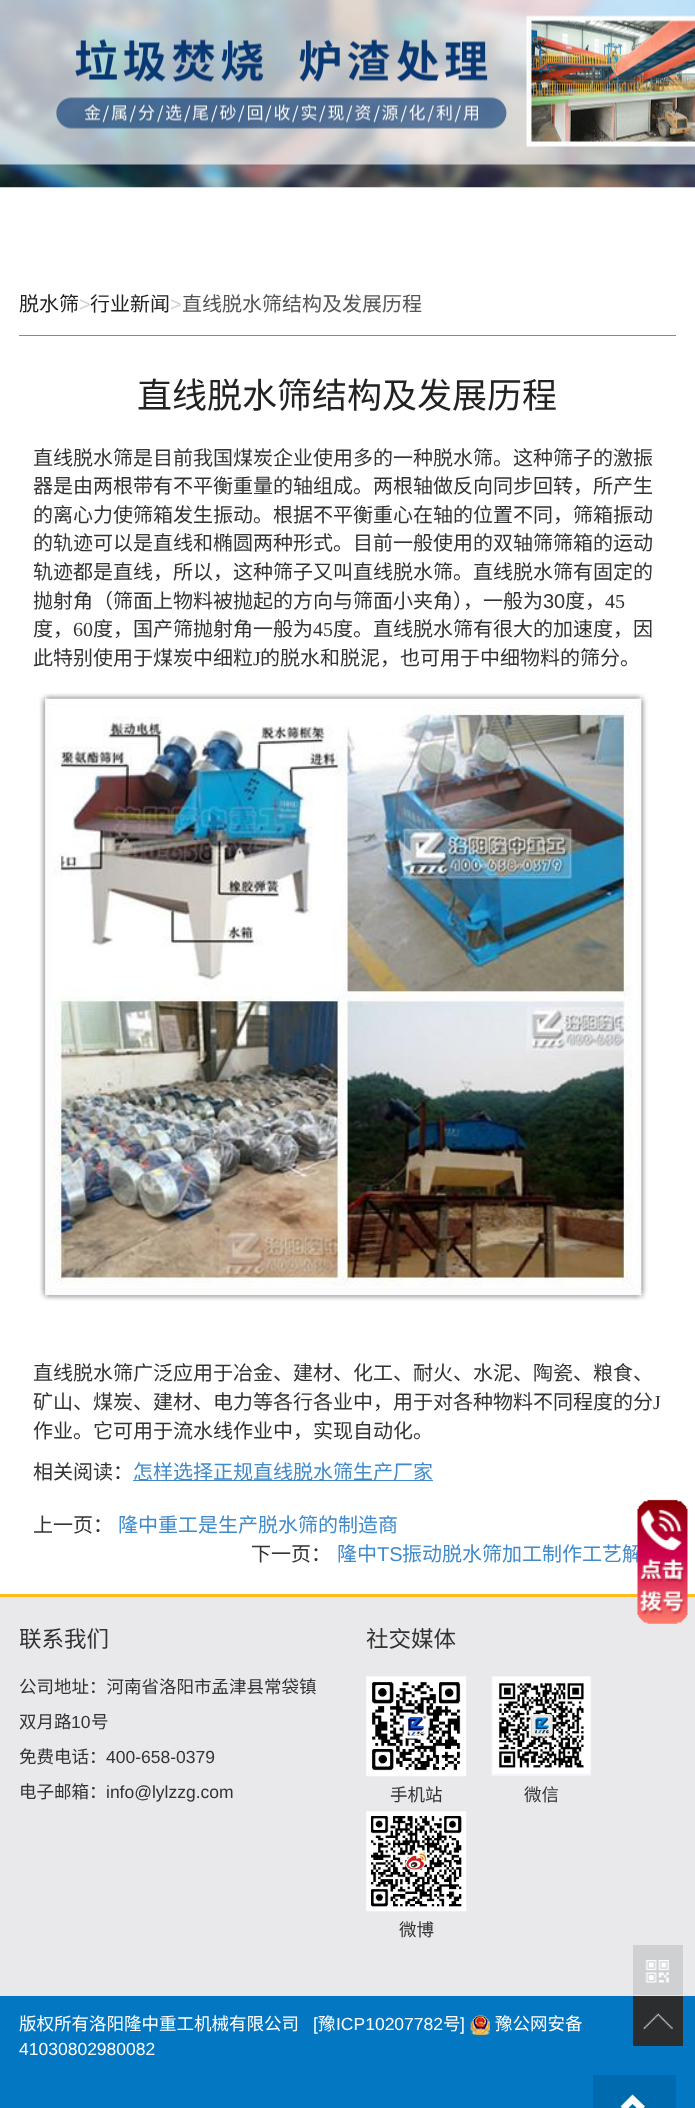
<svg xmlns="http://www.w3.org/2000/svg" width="695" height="2108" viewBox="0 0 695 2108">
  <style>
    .t1 { font: 20px Noto Sans CJK SC; fill: #222; }
    .t2 { font: 20px Liberation Sans; fill: #d0d0d0; }
    .t3 { font: 20px Noto Sans CJK SC; fill: #555; }
    .t4 { font: 35px Noto Sans CJK SC; fill: #222; }
    .t5 { font: 20px Noto Sans CJK SC; fill: #333; }
    .t6 { font: 20px Liberation Sans; fill: #333; }
    .t7 { font: 20px Liberation Serif; fill: #333; }
    .t8 { font: 20px Noto Sans CJK SC; fill: #428bca; }
    .t9 { font: 20px Liberation Sans; fill: #428bca; }
    .t10 { font: 22.5px Noto Sans CJK SC; fill: #333; }
    .t11 { font: 17.5px Noto Sans CJK SC; fill: #333; }
    .t12 { font: 17.5px Liberation Sans; fill: #333; }
    .t13 { font: 17.5px Noto Sans CJK SC; fill: #fff; }
    .t14 { font: 17.5px Liberation Sans; fill: #fff; }
  </style>
  <rect width="100%" height="100%" fill="#fff"/>
  <image x="0" y="0" width="695" height="188" href="images/1.png"/>
  <rect x="19" y="335" width="657" height="1" fill="#8a8a8a"/>
  <text x="19" y="311" class="t1">脱水筛</text>
  <text x="79" y="311" class="t2">&gt;</text>
  <text x="90" y="311" class="t1">行业新闻</text>
  <text x="170" y="311" class="t2">&gt;</text>
  <text x="182" y="311" class="t3">直线脱水筛结构及发展历程</text>
  <text x="137" y="408" class="t4">直线脱水筛结构及发展历程</text>
  <text x="33" y="465" class="t5">直线脱水筛是目前我国煤炭企业使用多的一种脱水筛。这种筛子的激振</text>
  <text x="33" y="493" class="t5">器是由两根带有不平衡重量的轴组成。两根轴做反向同步回转，所产生</text>
  <text x="33" y="522" class="t5">的离心力使筛箱发生振动。根据不平衡重心在轴的位置不同，筛箱振动</text>
  <text x="33" y="550" class="t5">的轨迹可以是直线和椭圆两种形式。目前一般使用的双轴筛筛箱的运动</text>
  <text x="33" y="579" class="t5">轨迹都是直线，所以，这种筛子又叫直线脱水筛。直线脱水筛有固定的</text>
  <text x="33" y="608" class="t5">抛射角（筛面上物料被抛起的方向与筛面小夹角），一般为</text>
  <text x="543" y="608" class="t6">30</text>
  <text x="565" y="608" class="t5">度，</text>
  <text x="605" y="608" class="t7">45</text>
  <text x="33" y="636" class="t5">度，</text>
  <text x="73" y="636" class="t7">60</text>
  <text x="93" y="636" class="t5">度，国产筛抛射角一般为</text>
  <text x="313" y="636" class="t7">45</text>
  <text x="333" y="636" class="t5">度。直线脱水筛有很大的加速度，因</text>
  <text x="33" y="665" class="t5">此特别使用于煤炭中细粒</text>
  <text x="253" y="665" class="t7">J</text>
  <text x="260" y="665" class="t5">的脱水和脱泥，也可用于中细物料的筛分。</text>
  <image x="39" y="693" width="609" height="608" href="images/2.png"/>
  <text x="33" y="1380" class="t5">直线脱水筛广泛应用于冶金、建材、化工、耐火、水泥、陶瓷、粮食、</text>
  <text x="33" y="1409" class="t5">矿山、煤炭、建材、电力等各行各业中，用于对各种物料不同程度的分</text>
  <text x="653" y="1409" class="t7">J</text>
  <text x="33" y="1438" class="t5">作业。它可用于流水线作业中，实现自动化。</text>
  <text x="33" y="1479" class="t5">相关阅读：</text>
  <rect x="133" y="1480" width="300" height="1" fill="#428bca"/>
  <text x="133" y="1479" class="t8">怎样选择正规直线脱水筛生产厂家</text>
  <text x="33" y="1532" class="t5">上一页：</text>
  <text x="118" y="1532" class="t8">隆中重工是生产脱水筛的制造商</text>
  <text x="251" y="1561" class="t5">下一页：</text>
  <text x="337" y="1561" class="t8">隆中</text>
  <text x="377" y="1561" class="t9">TS</text>
  <text x="402" y="1561" class="t8">振动脱水筛加工制作工艺解</text>
  <rect x="0" y="1597" width="695" height="399" fill="#e9e9eb"/>
  <rect x="0" y="1594" width="695" height="3" fill="#ffbc1c"/>
  <image x="637" y="1499" width="51" height="125" href="images/3.png"/>
  <text x="19" y="1647" class="t10">联系我们</text>
  <text x="19" y="1693" class="t11">公司地址：河南省洛阳市孟津县常袋镇</text>
  <text x="19" y="1728" class="t11">双月路</text>
  <text x="71" y="1728" class="t12">10</text>
  <text x="91" y="1728" class="t11">号</text>
  <text x="19" y="1763" class="t11">免费电话：</text>
  <text x="106" y="1763" class="t12">400-658-0379</text>
  <text x="19" y="1798" class="t11">电子邮箱：</text>
  <text x="106" y="1798" class="t12">info@lylzzg.com</text>
  <text x="366" y="1647" class="t10">社交媒体</text>
  <image x="366" y="1676" width="101" height="101" href="images/4.png"/>
  <text x="390" y="1801" class="t11">手机站</text>
  <image x="491" y="1676" width="101" height="101" href="images/5.png"/>
  <text x="524" y="1801" class="t11">微信</text>
  <image x="366" y="1811" width="101" height="101" href="images/6.png"/>
  <text x="399" y="1936" class="t11">微博</text>
  <rect x="0" y="1996" width="695" height="112" fill="#0377c2"/>
  <text x="19" y="2030" class="t13">版权所有洛阳隆中重工机械有限公司</text>
  <text x="313" y="2030" class="t14">[</text>
  <text x="318" y="2030" class="t13">豫</text>
  <text x="336" y="2030" class="t14">ICP10207782</text>
  <text x="443" y="2030" class="t13">号</text>
  <text x="460" y="2030" class="t14">]</text>
  <image x="470" y="2015" width="20" height="20" href="images/7.png"/>
  <text x="495" y="2030" class="t13">豫公网安备</text>
  <text x="19" y="2055" class="t14">41030802980082</text>
  <rect x="593" y="2075" width="83" height="33" fill="#006aaf"/>
  <path d="M620.5 2106.5L625.5 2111L632.5 2104L640 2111L645 2106.5L632.5 2094.5Z" fill="#fff"/>
  <rect x="633" y="1945" width="50" height="50" fill="#cfd0d2"/>
  <image x="645" y="1960" width="24" height="23" href="images/8.png"/>
  <rect x="633" y="1996" width="50" height="50" fill="#2c2d2e"/>
  <image x="643" y="2013" width="30" height="16" href="images/9.png"/>
</svg>
